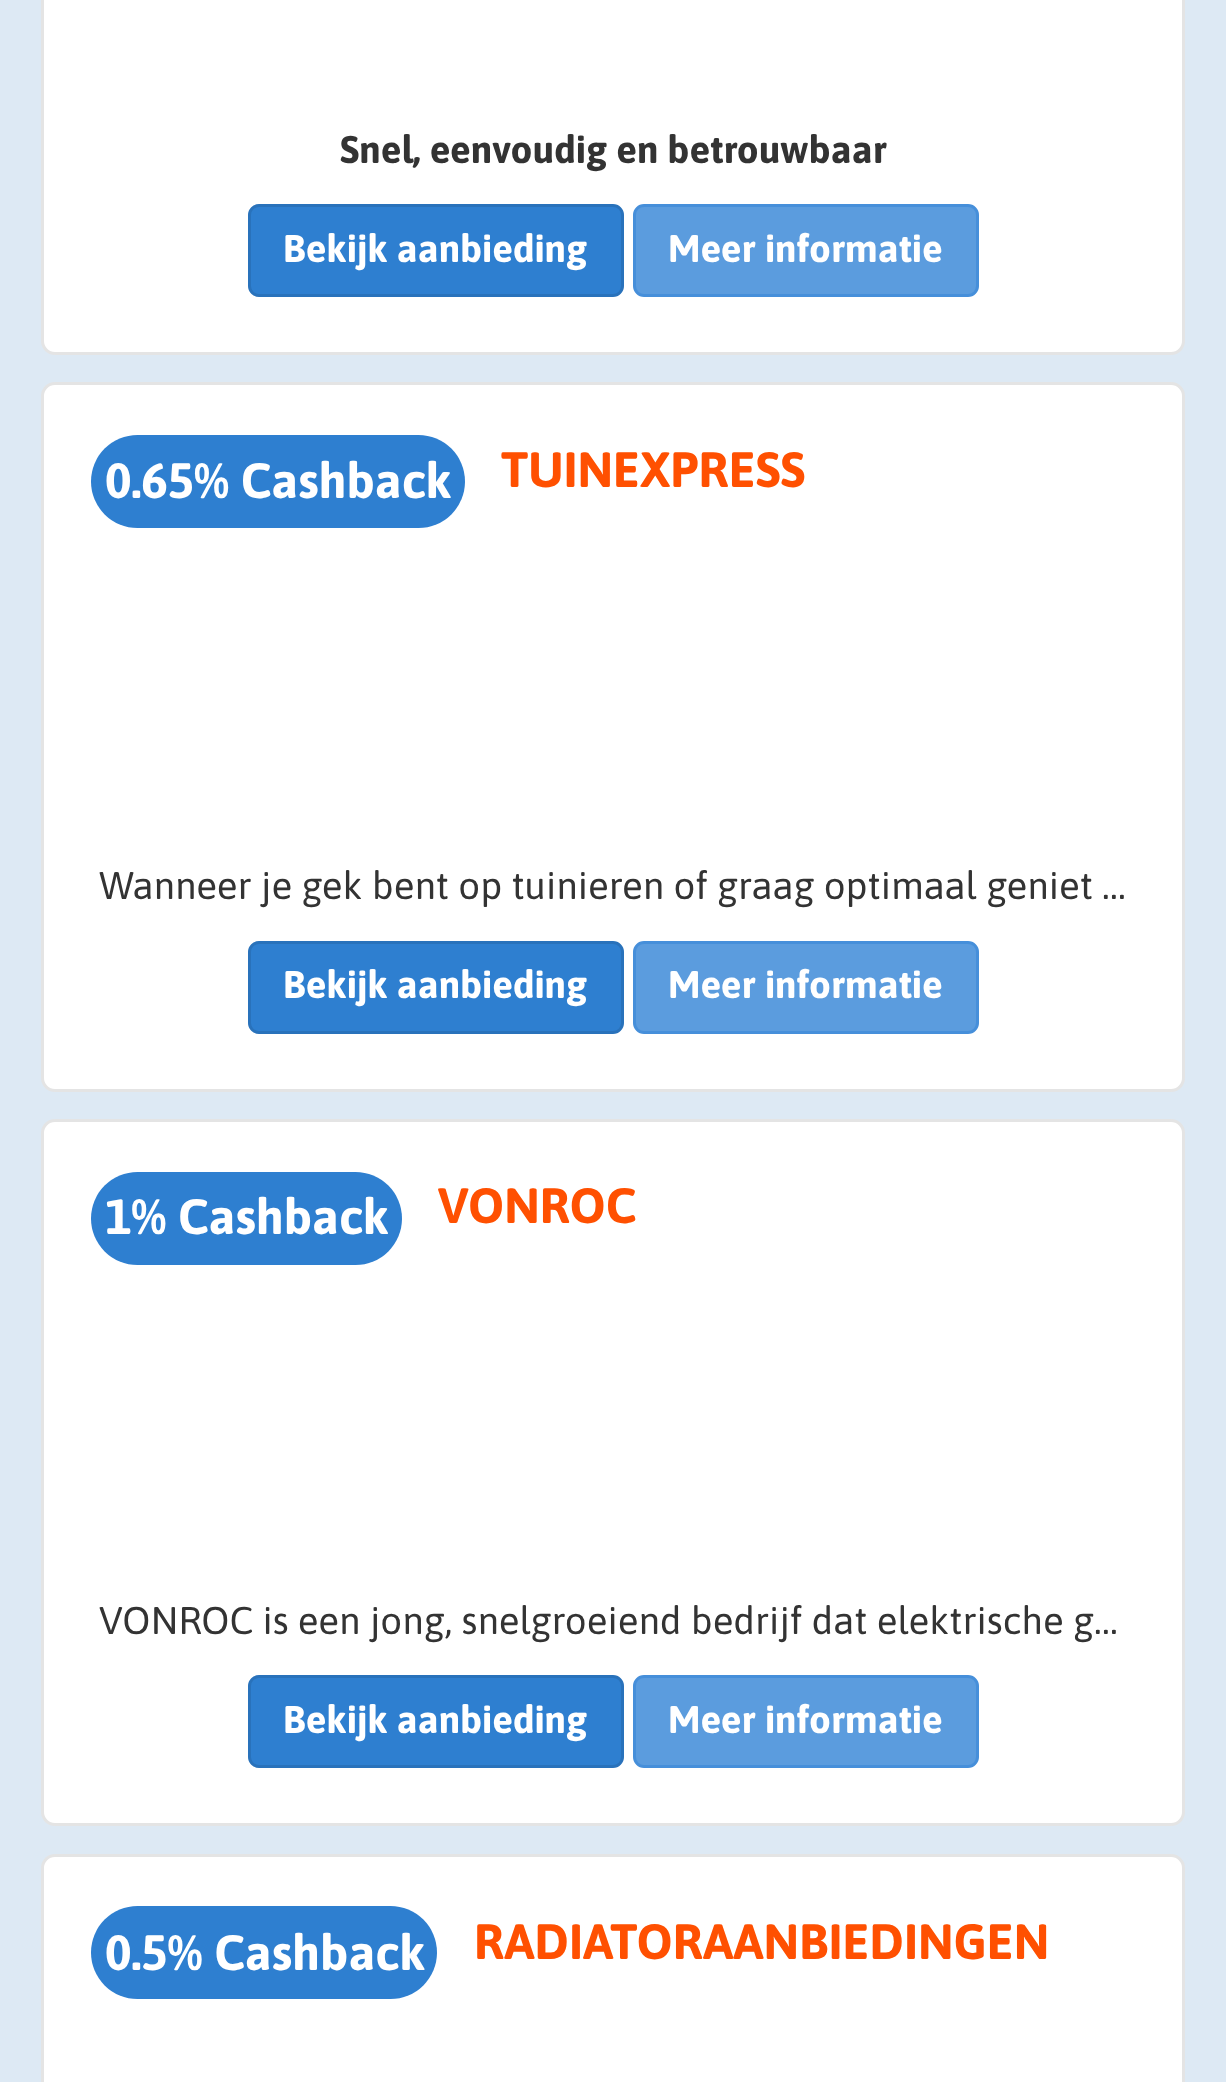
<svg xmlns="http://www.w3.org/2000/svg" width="1226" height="2082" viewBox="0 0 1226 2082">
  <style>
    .t1 { font: bold 38.5px Asap; fill: #333; }
    .t2 { font: bold 38.5px Asap; fill: #fff; }
    .t3 { font: bold 49.5px Asap; fill: #fff; }
    .t4 { font: bold 49.5px Asap; fill: #ff5001; }
    .t5 { font: 38.5px Asap; fill: #333; }
  </style>
  <rect width="100%" height="100%" fill="#dde9f4"/>
  <rect x="42.5" y="-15.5" width="1141" height="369" rx="12.5" fill="#fff" stroke="#e4e4e4" stroke-width="3"/>
  <text x="340" y="163" class="t1">Snel, eenvoudig en betrouwbaar</text>
  <rect x="249.5" y="205.5" width="373" height="90" rx="9.5" fill="#2e7fd0" stroke="#2972bb" stroke-width="3"/>
  <text x="283" y="262" class="t2">Bekijk aanbieding</text>
  <rect x="634.5" y="205.5" width="343" height="90" rx="9.5" fill="#5b9cde" stroke="#468fda" stroke-width="3"/>
  <text x="668" y="262" class="t2">Meer informatie</text>
  <rect x="42.5" y="383.5" width="1141" height="707" rx="12.5" fill="#fff" stroke="#e4e4e4" stroke-width="3"/>
  <rect x="91" y="435" width="374" height="93" rx="46.5" fill="#2e7fd0"/>
  <text x="105" y="498" class="t3">0.65% Cashback</text>
  <text x="501" y="487" class="t4">TUINEXPRESS</text>
  <text x="99" y="899" class="t5">Wanneer je gek bent op tuinieren of graag optimaal geniet …</text>
  <rect x="249.5" y="942.5" width="373" height="90" rx="9.5" fill="#2e7fd0" stroke="#2972bb" stroke-width="3"/>
  <text x="283" y="998" class="t2">Bekijk aanbieding</text>
  <rect x="634.5" y="942.5" width="343" height="90" rx="9.5" fill="#5b9cde" stroke="#468fda" stroke-width="3"/>
  <text x="668" y="998" class="t2">Meer informatie</text>
  <rect x="42.5" y="1120.5" width="1141" height="704" rx="12.5" fill="#fff" stroke="#e4e4e4" stroke-width="3"/>
  <rect x="91" y="1172" width="311" height="93" rx="46.5" fill="#2e7fd0"/>
  <text x="105" y="1234" class="t3">1% Cashback</text>
  <text x="438" y="1223" class="t4">VONROC</text>
  <text x="99" y="1634" class="t5">VONROC is een jong, snelgroeiend bedrijf dat elektrische g…</text>
  <rect x="249.5" y="1676.5" width="373" height="90" rx="9.5" fill="#2e7fd0" stroke="#2972bb" stroke-width="3"/>
  <text x="283" y="1733" class="t2">Bekijk aanbieding</text>
  <rect x="634.5" y="1676.5" width="343" height="90" rx="9.5" fill="#5b9cde" stroke="#468fda" stroke-width="3"/>
  <text x="668" y="1733" class="t2">Meer informatie</text>
  <rect x="42.5" y="1855.5" width="1141" height="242" rx="12.5" fill="#fff" stroke="#e4e4e4" stroke-width="3"/>
  <rect x="91" y="1906" width="346" height="93" rx="46.5" fill="#2e7fd0"/>
  <text x="105" y="1970" class="t3">0.5% Cashback</text>
  <text x="474" y="1959" class="t4">RADIATORAANBIEDINGEN</text>
</svg>
